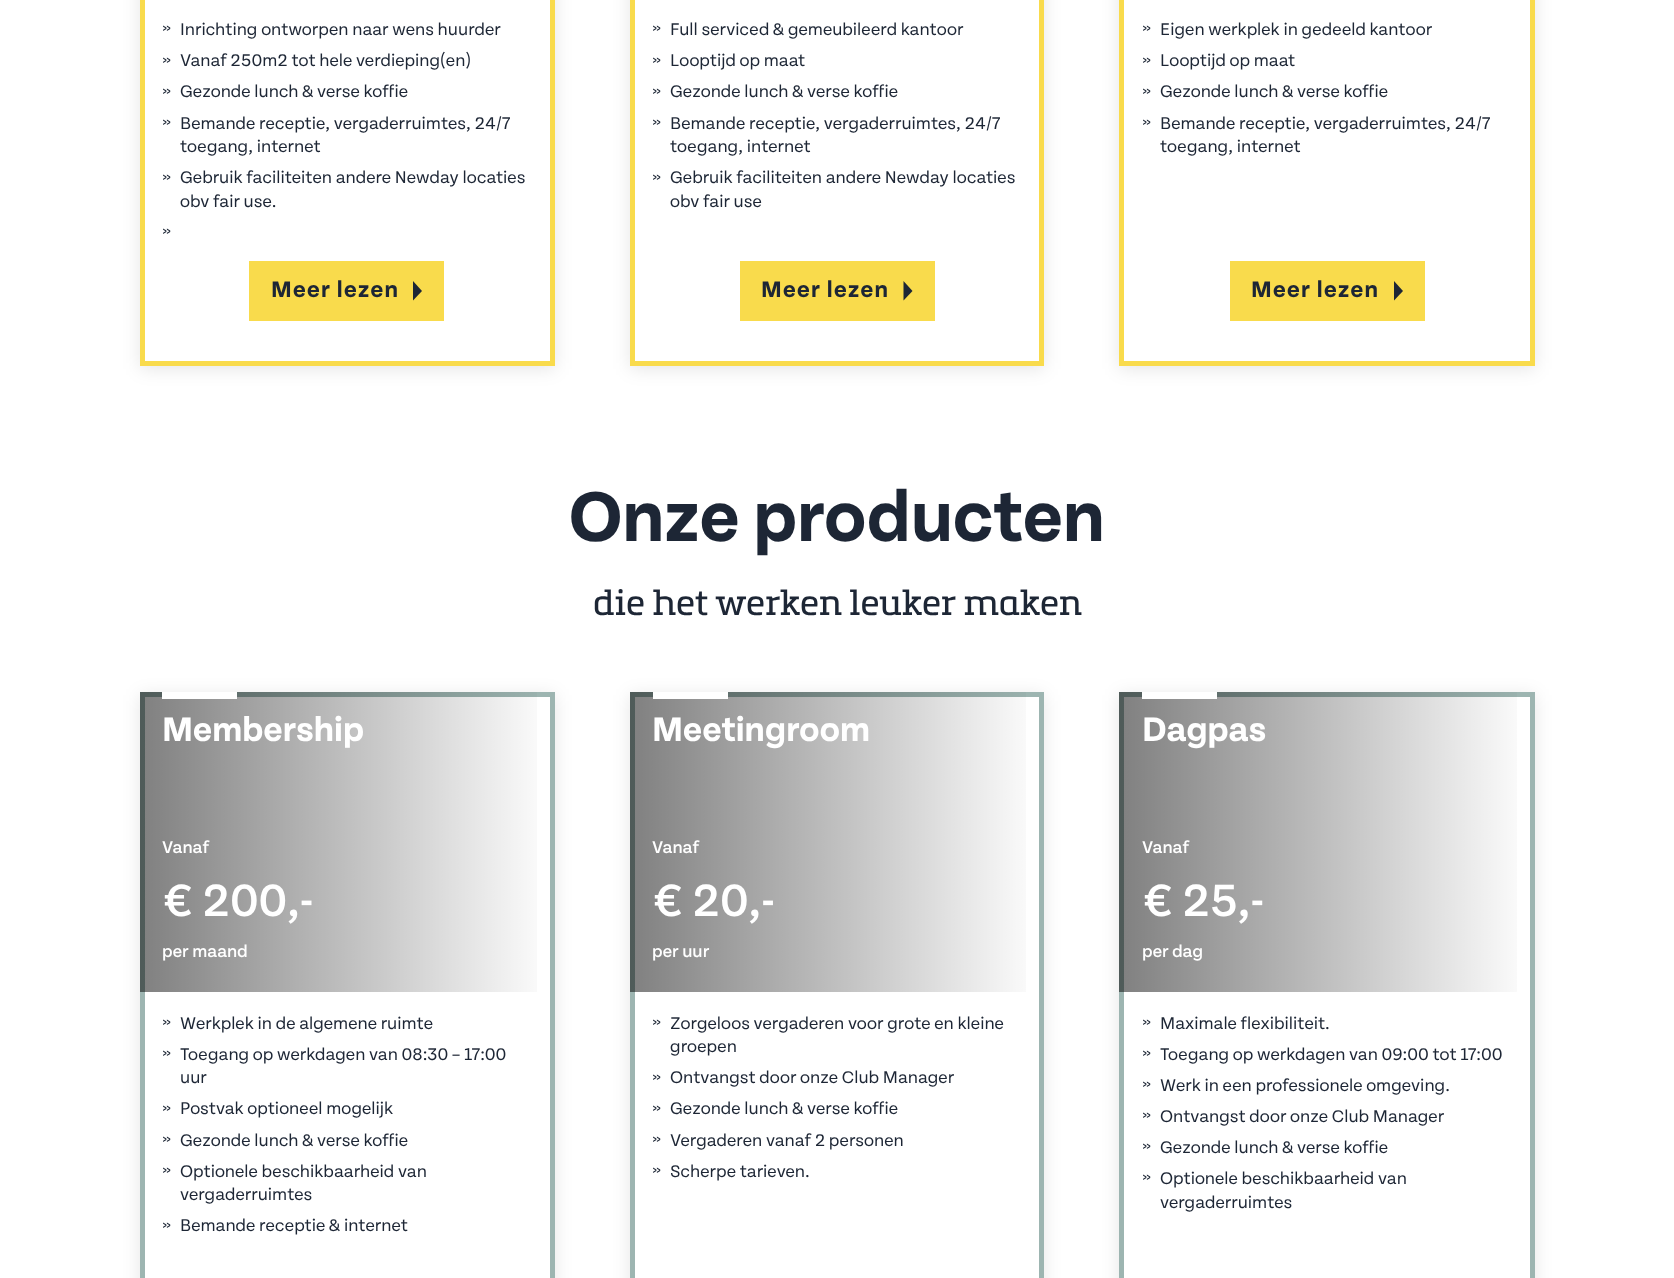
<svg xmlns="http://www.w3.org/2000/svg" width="1674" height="1278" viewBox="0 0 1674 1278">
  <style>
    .t1 { font: 18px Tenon; fill: #1d2635; }
    .t2 { font: bold 24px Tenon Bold; letter-spacing: 1.25px; fill: #1d2635; }
    .t3 { font: bold 75px Tenon Bold; fill: #1d2635; }
    .t4 { font: 36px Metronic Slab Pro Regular; fill: #1d2635; }
    .t5 { font: bold 36px Tenon Bold; fill: #fff; }
    .t6 { font: 500 18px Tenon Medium; fill: #fff; }
    .t7 { font: 500 48px Tenon Medium; fill: #fff; }
  </style>
  <defs>
    <clipPath id="clip1"><path d="M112 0H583V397H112ZM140-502H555V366H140Z" clip-rule="evenodd"/></clipPath>
    <clipPath id="clip2"><path d="M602 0H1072V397H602ZM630-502H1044V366H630Z" clip-rule="evenodd"/></clipPath>
    <clipPath id="clip3"><path d="M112 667H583V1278H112ZM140 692H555V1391H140Z" clip-rule="evenodd"/></clipPath>
    <linearGradient id="g1" gradientUnits="userSpaceOnUse" x1="140" y1="842" x2="555" y2="842"><stop offset="0" stop-color="#000" stop-opacity="0.5"/><stop offset="1" stop-color="#000" stop-opacity="0"/></linearGradient>
    <clipPath id="clip4"><path d="M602 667H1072V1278H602ZM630 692H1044V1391H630Z" clip-rule="evenodd"/></clipPath>
    <linearGradient id="g2" gradientUnits="userSpaceOnUse" x1="630" y1="842" x2="1044" y2="842"><stop offset="0" stop-color="#000" stop-opacity="0.5"/><stop offset="1" stop-color="#000" stop-opacity="0"/></linearGradient>
    <linearGradient id="g3" gradientUnits="userSpaceOnUse" x1="1119" y1="842" x2="1535" y2="842"><stop offset="0" stop-color="#000" stop-opacity="0.5"/><stop offset="1" stop-color="#000" stop-opacity="0"/></linearGradient>
  </defs>
  <rect width="100%" height="100%" fill="#fff"/>
  <g clip-path="url(#clip1)">
    <rect x="140" y="-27" width="415" height="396" fill="#0000001a" filter="blur(9px)"/>
  </g>
  <rect x="142.5" y="-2.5" width="410" height="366" fill="none" stroke="#f9db4c" stroke-width="5"/>
  <text x="162" y="33" class="t1">»</text>
  <text x="180" y="35" class="t1">Inrichting ontworpen naar wens huurder</text>
  <text x="162" y="65" class="t1">»</text>
  <text x="180" y="66" class="t1">Vanaf 250m2 tot hele verdieping(en)</text>
  <text x="162" y="96" class="t1">»</text>
  <text x="180" y="97" class="t1">Gezonde lunch &amp; verse koffie</text>
  <text x="162" y="127" class="t1">»</text>
  <text x="180" y="129" class="t1">Bemande receptie, vergaderruimtes, 24/7</text>
  <text x="180" y="152" class="t1">toegang, internet</text>
  <text x="162" y="182" class="t1">»</text>
  <text x="180" y="183" class="t1">Gebruik faciliteiten andere Newday locaties</text>
  <text x="180" y="207" class="t1">obv fair use.</text>
  <text x="162" y="236" class="t1">»</text>
  <rect x="249" y="261" width="195" height="60" fill="#f9db4c"/>
  <text x="271" y="297" class="t2">Meer lezen</text>
  <path d="M413 300.5V281L422 291Z" fill="#1d2635" fill-rule="evenodd"/>
  <g clip-path="url(#clip2)">
    <rect x="630" y="-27" width="414" height="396" fill="#0000001a" filter="blur(9px)"/>
  </g>
  <rect x="632.5" y="-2.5" width="409" height="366" fill="none" stroke="#f9db4c" stroke-width="5"/>
  <text x="652" y="33" class="t1">»</text>
  <text x="670" y="35" class="t1">Full serviced &amp; gemeubileerd kantoor</text>
  <text x="652" y="65" class="t1">»</text>
  <text x="670" y="66" class="t1">Looptijd op maat</text>
  <text x="652" y="96" class="t1">»</text>
  <text x="670" y="97" class="t1">Gezonde lunch &amp; verse koffie</text>
  <text x="652" y="127" class="t1">»</text>
  <text x="670" y="129" class="t1">Bemande receptie, vergaderruimtes, 24/7</text>
  <text x="670" y="152" class="t1">toegang, internet</text>
  <text x="652" y="182" class="t1">»</text>
  <text x="670" y="183" class="t1">Gebruik faciliteiten andere Newday locaties</text>
  <text x="670" y="207" class="t1">obv fair use</text>
  <rect x="740" y="261" width="195" height="60" fill="#f9db4c"/>
  <text x="761" y="297" class="t2">Meer lezen</text>
  <path d="M903.5 300.5V281L912.5 291Z" fill="#1d2635" fill-rule="evenodd"/>
  <rect x="1119" y="-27" width="416" height="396" fill="#0000001a" filter="blur(9px)"/>
  <rect x="1121.5" y="-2.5" width="411" height="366" fill="#fff" stroke="#f9db4c" stroke-width="5"/>
  <text x="1142" y="33" class="t1">»</text>
  <text x="1160" y="35" class="t1">Eigen werkplek in gedeeld kantoor</text>
  <text x="1142" y="65" class="t1">»</text>
  <text x="1160" y="66" class="t1">Looptijd op maat</text>
  <text x="1142" y="96" class="t1">»</text>
  <text x="1160" y="97" class="t1">Gezonde lunch &amp; verse koffie</text>
  <text x="1142" y="127" class="t1">»</text>
  <text x="1160" y="129" class="t1">Bemande receptie, vergaderruimtes, 24/7</text>
  <text x="1160" y="152" class="t1">toegang, internet</text>
  <rect x="1230" y="261" width="195" height="60" fill="#f9db4c"/>
  <text x="1251" y="297" class="t2">Meer lezen</text>
  <path d="M1394 300.5V281L1403 291Z" fill="#1d2635" fill-rule="evenodd"/>
  <text x="569" y="541" class="t3">Onze producten</text>
  <text x="593" y="615" class="t4">die het werken leuker maken</text>
  <g clip-path="url(#clip3)">
    <rect x="140" y="695" width="415" height="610" fill="#0000001a" filter="blur(9px)"/>
  </g>
  <rect x="142.5" y="694.5" width="410" height="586" fill="none" stroke="#9db5b1" stroke-width="5"/>
  <rect x="140" y="692" width="397" height="300" fill="url(#g1)"/>
  <rect x="162" y="692" width="75" height="7" fill="#fff"/>
  <text x="162" y="741" class="t5">Membership</text>
  <text x="162" y="853" class="t6">Vanaf</text>
  <text x="162" y="916" class="t7">€ 200,-</text>
  <text x="162" y="957" class="t6">per maand</text>
  <text x="162" y="1027" class="t1">»</text>
  <text x="180" y="1029" class="t1">Werkplek in de algemene ruimte</text>
  <text x="162" y="1058" class="t1">»</text>
  <text x="180" y="1060" class="t1">Toegang op werkdagen van 08:30 – 17:00</text>
  <text x="180" y="1083" class="t1">uur</text>
  <text x="162" y="1113" class="t1">»</text>
  <text x="180" y="1114" class="t1">Postvak optioneel mogelijk</text>
  <text x="162" y="1144" class="t1">»</text>
  <text x="180" y="1146" class="t1">Gezonde lunch &amp; verse koffie</text>
  <text x="162" y="1175" class="t1">»</text>
  <text x="180" y="1177" class="t1">Optionele beschikbaarheid van</text>
  <text x="180" y="1200" class="t1">vergaderruimtes</text>
  <text x="162" y="1230" class="t1">»</text>
  <text x="180" y="1231" class="t1">Bemande receptie &amp; internet</text>
  <g clip-path="url(#clip4)">
    <rect x="630" y="695" width="414" height="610" fill="#0000001a" filter="blur(9px)"/>
  </g>
  <rect x="632.5" y="694.5" width="409" height="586" fill="none" stroke="#9db5b1" stroke-width="5"/>
  <rect x="630" y="692" width="396" height="300" fill="url(#g2)"/>
  <rect x="653" y="692" width="75" height="7" fill="#fff"/>
  <text x="652" y="741" class="t5">Meetingroom</text>
  <text x="652" y="853" class="t6">Vanaf</text>
  <text x="652" y="916" class="t7">€ 20,-</text>
  <text x="652" y="957" class="t6">per uur</text>
  <text x="652" y="1027" class="t1">»</text>
  <text x="670" y="1029" class="t1">Zorgeloos vergaderen voor grote en kleine</text>
  <text x="670" y="1052" class="t1">groepen</text>
  <text x="652" y="1082" class="t1">»</text>
  <text x="670" y="1083" class="t1">Ontvangst door onze Club Manager</text>
  <text x="652" y="1113" class="t1">»</text>
  <text x="670" y="1114" class="t1">Gezonde lunch &amp; verse koffie</text>
  <text x="652" y="1144" class="t1">»</text>
  <text x="670" y="1146" class="t1">Vergaderen vanaf 2 personen</text>
  <text x="652" y="1175" class="t1">»</text>
  <text x="670" y="1177" class="t1">Scherpe tarieven.</text>
  <rect x="1119" y="695" width="416" height="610" fill="#0000001a" filter="blur(9px)"/>
  <rect x="1121.5" y="694.5" width="411" height="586" fill="#fff" stroke="#9db5b1" stroke-width="5"/>
  <rect x="1119" y="692" width="398" height="300" fill="url(#g3)"/>
  <rect x="1142" y="692" width="75" height="7" fill="#fff"/>
  <text x="1142" y="741" class="t5">Dagpas</text>
  <text x="1142" y="853" class="t6">Vanaf</text>
  <text x="1142" y="916" class="t7">€ 25,-</text>
  <text x="1142" y="957" class="t6">per dag</text>
  <text x="1142" y="1027" class="t1">»</text>
  <text x="1160" y="1029" class="t1">Maximale flexibiliteit.</text>
  <text x="1142" y="1058" class="t1">»</text>
  <text x="1160" y="1060" class="t1">Toegang op werkdagen van 09:00 tot 17:00</text>
  <text x="1142" y="1089" class="t1">»</text>
  <text x="1160" y="1091" class="t1">Werk in een professionele omgeving.</text>
  <text x="1142" y="1120" class="t1">»</text>
  <text x="1160" y="1122" class="t1">Ontvangst door onze Club Manager</text>
  <text x="1142" y="1151" class="t1">»</text>
  <text x="1160" y="1153" class="t1">Gezonde lunch &amp; verse koffie</text>
  <text x="1142" y="1182" class="t1">»</text>
  <text x="1160" y="1184" class="t1">Optionele beschikbaarheid van</text>
  <text x="1160" y="1208" class="t1">vergaderruimtes</text>
</svg>
